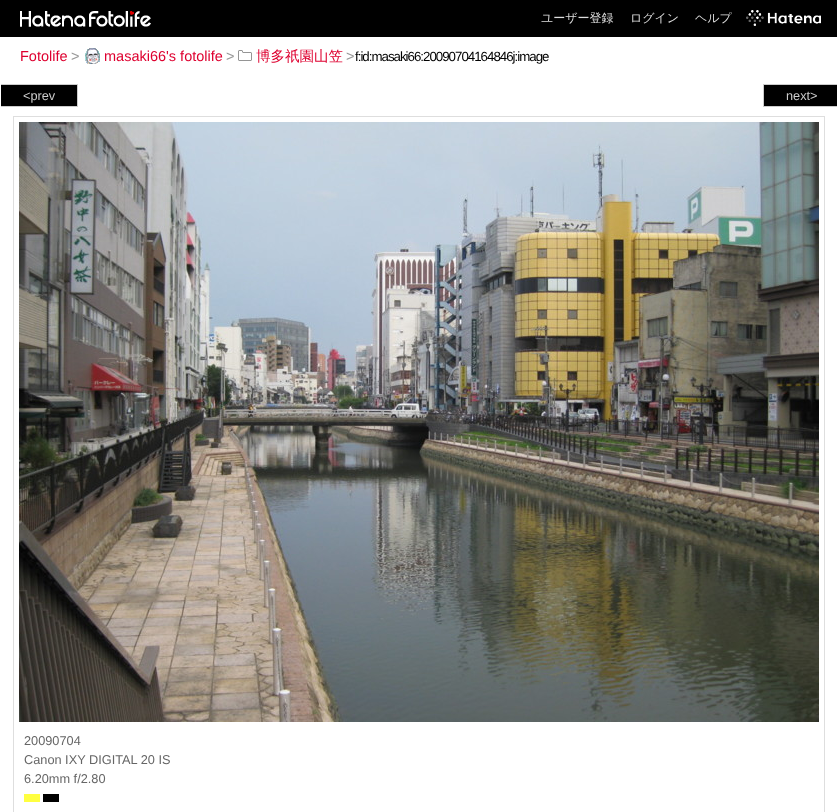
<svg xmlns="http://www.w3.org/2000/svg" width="837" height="812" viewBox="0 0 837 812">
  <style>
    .t1 { font: 500 12px WenQuanYi Zen Hei; fill: #ddd; }
    .t2 { font: 14.5px Liberation Sans; fill: #de002f; }
    .t3 { font: 14.5px Liberation Sans; fill: #999; }
    .t4 { font: 500 14.5px WenQuanYi Zen Hei; fill: #de002f; }
    .t5 { font: 13.3px Liberation Sans; letter-spacing: -1px; fill: #000; }
    .t6 { font: 12.75px Liberation Sans; fill: #ccc; }
    .t7 { font: 12.75px Liberation Sans; fill: #666; }
  </style>
  <rect width="100%" height="100%" fill="#fff"/>
  <rect x="0" y="0" width="837" height="37" fill="#000"/>
  <image x="20" y="11" width="66" height="16" href="images/1.png"/>
  <image x="89" y="11" width="62" height="16" href="images/2.png"/>
  <text x="541" y="22" class="t1">ユーザー登録</text>
  <text x="630" y="22" class="t1">ログイン</text>
  <text x="695" y="22" class="t1">ヘルプ</text>
  <image x="746" y="10" width="75" height="16" href="images/3.png"/>
  <text x="20" y="61" class="t2">Fotolife</text>
  <text x="71" y="61" class="t3">&gt;</text>
  <image x="85" y="48" width="15" height="16" href="images/4.png"/>
  <text x="104" y="61" class="t2">masaki66's fotolife</text>
  <text x="226" y="61" class="t3">&gt;</text>
  <image x="238" y="50" width="14" height="11" href="images/5.png"/>
  <text x="256" y="61" class="t4">博多祇園山笠</text>
  <text x="346" y="61" class="t3">&gt;</text>
  <text x="355" y="61" class="t5">f:id:masaki66:20090704164846j:image</text>
  <rect x="1" y="85" width="76" height="21" fill="#000"/>
  <rect x="1" y="84" width="77" height="1" fill="#ccc"/>
  <rect x="77" y="84" width="1" height="23" fill="#ccc"/>
  <rect x="1" y="106" width="77" height="1" fill="#ccc"/>
  <text x="23" y="100" class="t6">&lt;prev</text>
  <rect x="764" y="85" width="73" height="21" fill="#000"/>
  <rect x="763" y="84" width="74" height="1" fill="#ccc"/>
  <rect x="763" y="106" width="74" height="1" fill="#ccc"/>
  <rect x="763" y="84" width="1" height="23" fill="#ccc"/>
  <text x="786" y="100" class="t6">next&gt;</text>
  <rect x="13.5" y="116.5" width="811" height="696" fill="none" stroke="#dedede"/>
  <image x="19" y="122" width="800" height="600" href="images/6.png"/>
  <text x="24" y="745" class="t7">20090704</text>
  <text x="24" y="764" class="t7">Canon IXY DIGITAL 20 IS</text>
  <text x="24" y="783" class="t7">6.20mm f/2.80</text>
  <rect x="24" y="794" width="16" height="8" fill="#ffff40"/>
  <rect x="43" y="794" width="16" height="8" fill="#000"/>
</svg>
